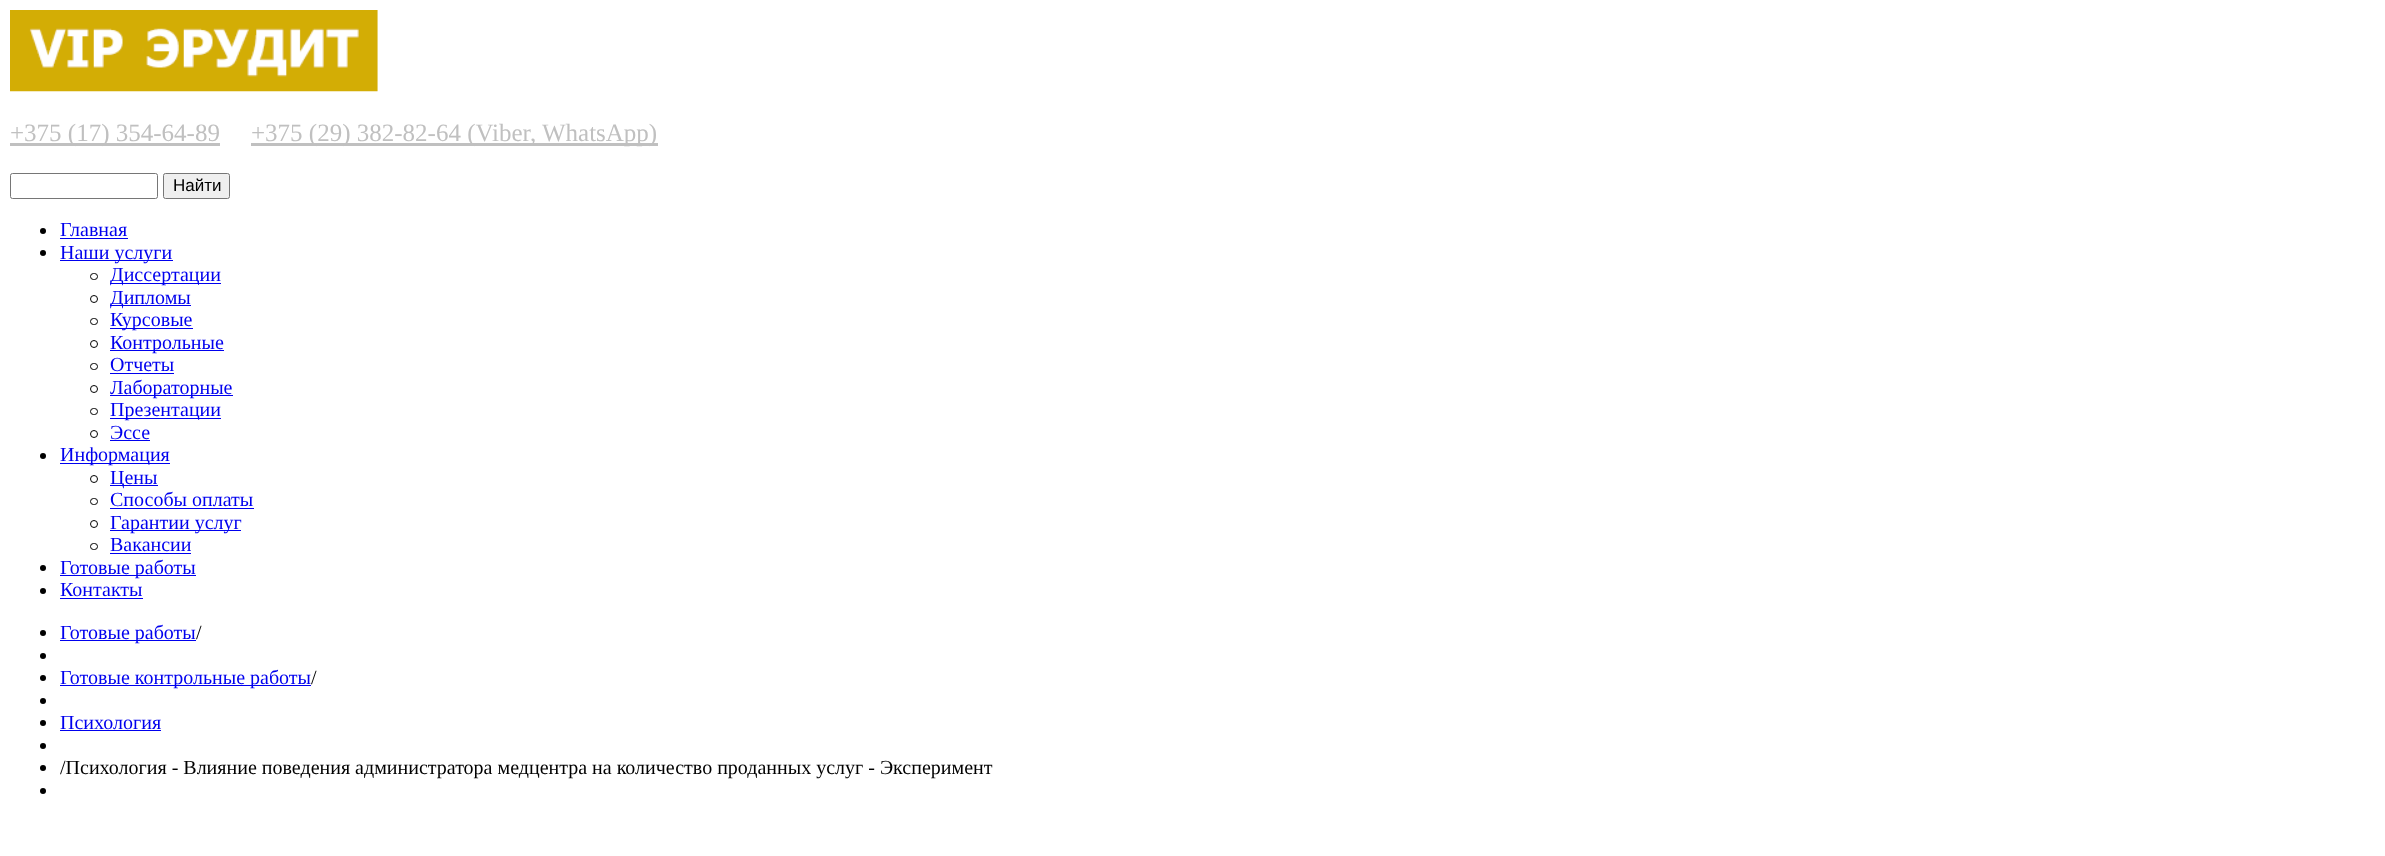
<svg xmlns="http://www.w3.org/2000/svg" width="2385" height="856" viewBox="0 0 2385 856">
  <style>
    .t1 { font: 25px Liberation Serif; fill: #c0c0c0; }
    .t2 { font: 17px Liberation Sans; fill: #000; }
    .t3 { font: 20px Liberation Serif; fill: #00e; }
    .t4 { font: 20px Liberation Serif; fill: #000; }
  </style>
  <rect width="100%" height="100%" fill="#fff"/>
  <image x="10" y="10" width="368" height="82" href="images/1.png"/>
  <rect x="10" y="143" width="210" height="3" fill="#c0c0c0"/>
  <text x="10" y="141" class="t1">+375 (17) 354-64-89</text>
  <rect x="251" y="143" width="407" height="3" fill="#c0c0c0"/>
  <text x="251" y="141" class="t1">+375 (29) 382-82-64 (Viber, WhatsApp)</text>
  <rect x="10.5" y="173.5" width="147" height="25" rx="2" fill="none" stroke="#767676"/>
  <rect x="163.5" y="173.5" width="66" height="25" rx="2" fill="#efefef" stroke="#767676"/>
  <text x="173" y="191" class="t2">Найти</text>
  <circle cx="43" cy="231" r="3" fill="#000"/>
  <text x="60" y="236" class="t3">Главная</text>
  <rect x="60" y="238" width="68" height="1" fill="#00e"/>
  <circle cx="43" cy="253" r="3" fill="#000"/>
  <rect x="60" y="260" width="113" height="1" fill="#00e"/>
  <text x="60" y="259" class="t3">Наши услуги</text>
  <rect x="90.5" y="273.5" width="7" height="6" rx="3" fill="none" stroke="#000"/>
  <rect x="110" y="283" width="111" height="1" fill="#00e"/>
  <text x="110" y="281" class="t3">Диссертации</text>
  <circle cx="94" cy="299" r="3.5" fill="none" stroke="#000"/>
  <rect x="110" y="305" width="81" height="1" fill="#00e"/>
  <text x="110" y="304" class="t3">Дипломы</text>
  <rect x="90.5" y="318.5" width="7" height="6" rx="3" fill="none" stroke="#000"/>
  <rect x="110" y="328" width="83" height="1" fill="#00e"/>
  <text x="110" y="326" class="t3">Курсовые</text>
  <circle cx="94" cy="344" r="3.5" fill="none" stroke="#000"/>
  <rect x="110" y="350" width="114" height="1" fill="#00e"/>
  <text x="110" y="349" class="t3">Контрольные</text>
  <rect x="90.5" y="363.5" width="7" height="6" rx="3" fill="none" stroke="#000"/>
  <text x="110" y="371" class="t3">Отчеты</text>
  <rect x="110" y="373" width="64" height="1" fill="#00e"/>
  <circle cx="94" cy="389" r="3.5" fill="none" stroke="#000"/>
  <rect x="110" y="395" width="123" height="1" fill="#00e"/>
  <text x="110" y="394" class="t3">Лабораторные</text>
  <rect x="90.5" y="408.5" width="7" height="6" rx="3" fill="none" stroke="#000"/>
  <rect x="110" y="418" width="111" height="1" fill="#00e"/>
  <text x="110" y="416" class="t3">Презентации</text>
  <circle cx="94" cy="434" r="3.5" fill="none" stroke="#000"/>
  <text x="110" y="439" class="t3">Эссе</text>
  <rect x="110" y="440" width="40" height="1" fill="#00e"/>
  <circle cx="43" cy="456" r="3" fill="#000"/>
  <rect x="60" y="463" width="110" height="1" fill="#00e"/>
  <text x="60" y="461" class="t3">Информация</text>
  <circle cx="94" cy="479" r="3.5" fill="none" stroke="#000"/>
  <rect x="110" y="485" width="48" height="1" fill="#00e"/>
  <text x="110" y="484" class="t3">Цены</text>
  <rect x="90.5" y="498.5" width="7" height="6" rx="3" fill="none" stroke="#000"/>
  <text x="110" y="506" class="t3">Способы оплаты</text>
  <rect x="110" y="508" width="144" height="1" fill="#00e"/>
  <circle cx="94" cy="524" r="3.5" fill="none" stroke="#000"/>
  <rect x="110" y="530" width="131" height="1" fill="#00e"/>
  <text x="110" y="529" class="t3">Гарантии услуг</text>
  <rect x="90.5" y="543.5" width="7" height="6" rx="3" fill="none" stroke="#000"/>
  <text x="110" y="551" class="t3">Вакансии</text>
  <rect x="110" y="553" width="81" height="1" fill="#00e"/>
  <circle cx="43" cy="568" r="3" fill="#000"/>
  <rect x="60" y="575" width="136" height="1" fill="#00e"/>
  <text x="60" y="574" class="t3">Готовые работы</text>
  <circle cx="43" cy="591" r="3" fill="#000"/>
  <text x="60" y="596" class="t3">Контакты</text>
  <rect x="60" y="598" width="83" height="1" fill="#00e"/>
  <circle cx="43" cy="633" r="3" fill="#000"/>
  <rect x="60" y="640" width="136" height="1" fill="#00e"/>
  <text x="60" y="639" class="t3">Готовые работы</text>
  <text x="196" y="639" class="t4">/</text>
  <circle cx="43" cy="656" r="3" fill="#000"/>
  <circle cx="43" cy="678" r="3" fill="#000"/>
  <rect x="60" y="685" width="251" height="1" fill="#00e"/>
  <text x="60" y="684" class="t3">Готовые контрольные работы</text>
  <text x="311" y="684" class="t4">/</text>
  <circle cx="43" cy="701" r="3" fill="#000"/>
  <circle cx="43" cy="723" r="3" fill="#000"/>
  <text x="60" y="729" class="t3">Психология</text>
  <rect x="60" y="730" width="101" height="1" fill="#00e"/>
  <circle cx="43" cy="746" r="3" fill="#000"/>
  <circle cx="43" cy="768" r="3" fill="#000"/>
  <text x="60" y="774" class="t4">/Психология - Влияние поведения администратора медцентра на количество проданных услуг - Эксперимент</text>
  <circle cx="43" cy="791" r="3" fill="#000"/>
</svg>
